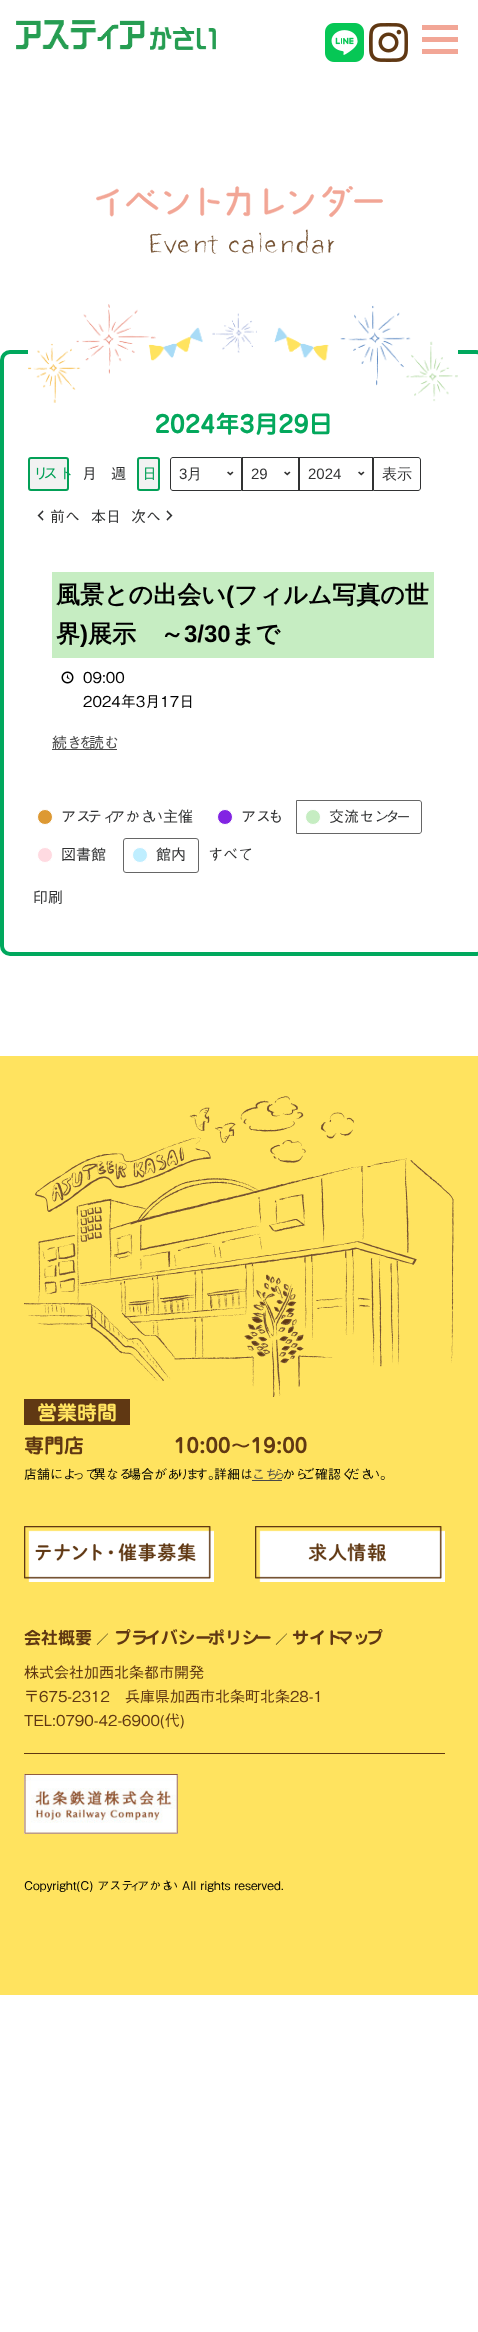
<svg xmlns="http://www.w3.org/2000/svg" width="478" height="2332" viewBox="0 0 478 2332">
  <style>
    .t1 { font: 600 24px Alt; fill: #03a85c; }
    .t2 { font: 15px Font; fill: #03a057; }
    .t3 { font: 15px Font; fill: #313233; }
    .t4 { font: 15px Liberation Sans; fill: #313233; }
    .t5 { font: 500 15px WenQuanYi Zen Hei; fill: #313233; }
    .t6 { font: bold 24px WenQuanYi Zen Hei; fill: #000; }
    .t7 { font: bold 24px Liberation Sans; fill: #000; }
    .t8 { font: 15px Font; fill: #000; }
    .t9 { font: 15px Alt; fill: #000; }
    .t10 { font: 15px Font; fill: #494949; }
    .t11 { font: 600 20px Font; fill: #ffe35f; }
    .t12 { font: 600 20px Font; fill: #603813; }
    .t13 { font: 13px Font; fill: #000; }
    .t14 { font: 13px Font; fill: #494949; }
    .t15 { font: 600 17px Font; fill: #603813; }
    .t16 { font: 600 13px Font; fill: #000; }
    .t17 { font: 15px Font; fill: #603813; }
    .t18 { font: 15px Alt; fill: #603813; }
    .t19 { font: 12px Font; fill: #000; }
  </style>
  <rect width="100%" height="100%" fill="#fff"/>
  <image x="16" y="20" width="200" height="30" href="images/1.png"/>
  <image x="325" y="23" width="39" height="39" href="images/2.png"/>
  <image x="369" y="23" width="39" height="39" href="images/3.png"/>
  <rect x="422" y="25" width="36" height="5" fill="#f2a696"/>
  <rect x="422" y="37" width="36" height="5" fill="#f2a696"/>
  <rect x="422" y="49" width="36" height="5" fill="#f2a696"/>
  <image x="96" y="186" width="287" height="68" href="images/4.png"/>
  <rect x="2" y="352" width="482" height="602" rx="8" fill="none" stroke="#00a85d" stroke-width="4"/>
  <rect x="28" y="350" width="430" height="4" fill="#fff"/>
  <image x="28" y="304" width="430" height="99" href="images/5.png"/>
  <text x="155" y="433" class="t1">2024年3月29日</text>
  <rect x="28" y="457" width="41" height="34" rx="3" fill="#f2f2f2"/>
  <rect x="29" y="458" width="39" height="32" rx="2" fill="none" stroke="#03a057" stroke-width="2"/>
  <text x="33" y="479" class="t2">リ</text>
  <text x="43" y="479" class="t2">スト</text>
  <text x="82" y="479" class="t3">月</text>
  <text x="111" y="479" class="t3">週</text>
  <rect x="137" y="457" width="23" height="34" rx="3" fill="#f2f2f2"/>
  <rect x="138" y="458" width="21" height="32" rx="2" fill="none" stroke="#03a057" stroke-width="2"/>
  <text x="142" y="479" class="t2">日</text>
  <image x="227" y="471" width="7" height="5" href="images/6.png"/>
  <path d="M173 457.5H241.5V490.5H173C171.5 490.5 170.5 489.5 170.5 488V460C170.5 458.5 171.5 457.5 173 457.5Z" fill="none" stroke="#313233"/>
  <text x="179" y="479" class="t4">3</text>
  <text x="187" y="479" class="t5">月</text>
  <image x="284" y="471" width="7" height="5" href="images/6.png"/>
  <rect x="242.5" y="457.5" width="56" height="33" fill="none" stroke="#313233"/>
  <text x="251" y="479" class="t4">29</text>
  <image x="358" y="471" width="7" height="5" href="images/6.png"/>
  <rect x="299.5" y="457.5" width="73" height="33" fill="none" stroke="#313233"/>
  <text x="308" y="479" class="t4">2024</text>
  <path d="M373.5 457.5H418C419.5 457.5 420.5 458.5 420.5 460V488C420.5 489.5 419.5 490.5 418 490.5H373.5Z" fill="none" stroke="#313233"/>
  <text x="382" y="479" class="t5">表示</text>
  <image x="37" y="510" width="7" height="11" href="images/7.png"/>
  <text x="50" y="522" class="t3">前へ</text>
  <text x="91" y="522" class="t3">本日</text>
  <text x="131" y="522" class="t3">次へ</text>
  <image x="166" y="510" width="7" height="11" href="images/8.png"/>
  <rect x="52" y="572" width="382" height="86" fill="#c6edc2"/>
  <text x="56" y="603" class="t6">風景との出会い</text>
  <text x="226" y="603" class="t7">(</text>
  <text x="234" y="603" class="t6">フィルム写真の世</text>
  <text x="56" y="642" class="t6">界</text>
  <text x="80" y="642" class="t7">)</text>
  <text x="88" y="642" class="t6">展示　～</text>
  <text x="184" y="642" class="t7">3/30</text>
  <text x="231" y="642" class="t6">まで</text>
  <image x="61" y="671" width="13" height="13" href="images/9.png"/>
  <text x="83" y="683" class="t8">09:00</text>
  <text x="83" y="707" class="t9">2024年3月17日</text>
  <rect x="52" y="749" width="65" height="1" fill="#494949"/>
  <text x="52" y="748" class="t10">続き</text>
  <text x="78" y="748" class="t10">を</text>
  <text x="89" y="748" class="t10">読む</text>
  <circle cx="45" cy="817" r="7.5" fill="#d93" stroke="#fff"/>
  <text x="61" y="822" class="t3">アス</text>
  <text x="87" y="822" class="t3">ティ</text>
  <text x="110" y="822" class="t3">アかさ</text>
  <text x="148" y="822" class="t3">い主催</text>
  <circle cx="225" cy="817" r="7.5" fill="#8224e3" stroke="#fff"/>
  <text x="241" y="822" class="t3">アス</text>
  <text x="268" y="822" class="t3">も</text>
  <path d="M296.5 800.5H419C420.5 800.5 421.5 801.5 421.5 803V831C421.5 832.5 420.5 833.5 419 833.5H296.5Z" fill="none" stroke="#666"/>
  <circle cx="313" cy="817" r="7.5" fill="#c6edc2" stroke="#fff"/>
  <text x="329" y="822" class="t3">交流セン</text>
  <text x="385" y="822" class="t3">タ</text>
  <text x="396" y="822" class="t3">ー</text>
  <circle cx="45" cy="855" r="7.5" fill="#ffdae1" stroke="#fff"/>
  <text x="61" y="860" class="t3">図書館</text>
  <rect x="123.5" y="838.5" width="75" height="34" rx="2.5" fill="none" stroke="#666"/>
  <circle cx="140" cy="855" r="7.5" fill="#bfeeff" stroke="#fff"/>
  <text x="156" y="860" class="t3">館内</text>
  <text x="208" y="860" class="t3">すべて</text>
  <text x="33" y="903" class="t3">印刷</text>
  <rect x="0" y="1056" width="478" height="939" fill="#ffe35f"/>
  <image x="24" y="1096" width="430" height="301" href="images/10.png"/>
  <rect x="24" y="1399" width="106" height="26" fill="#603813"/>
  <text x="37" y="1420" class="t11">営業時間</text>
  <text x="24" y="1453" class="t12">専門店</text>
  <text x="174" y="1453" class="t12">10:00～19:00</text>
  <text x="24" y="1479" class="t13">店舗によ</text>
  <text x="72" y="1479" class="t13">って</text>
  <text x="93" y="1479" class="t13">異なる</text>
  <text x="128" y="1479" class="t13">場合があ</text>
  <text x="176" y="1479" class="t13">り</text>
  <text x="186" y="1479" class="t13">ま</text>
  <text x="195" y="1479" class="t13">す。</text>
  <text x="214" y="1479" class="t13">詳細は</text>
  <text x="252" y="1479" class="t14">こち</text>
  <text x="273" y="1479" class="t14">ら</text>
  <rect x="252" y="1480" width="30" height="1" fill="#494949"/>
  <text x="282" y="1479" class="t13">から</text>
  <text x="302" y="1479" class="t13">ご確認く</text>
  <text x="347" y="1479" class="t13">ださ</text>
  <text x="367" y="1479" class="t13">い。</text>
  <image x="24" y="1526" width="190" height="56" href="images/11.png"/>
  <image x="255" y="1526" width="190" height="56" href="images/12.png"/>
  <text x="24" y="1644" class="t15">会社概要</text>
  <text x="96" y="1644" class="t16">／</text>
  <text x="114" y="1644" class="t15">プラ</text>
  <text x="144" y="1644" class="t15">イバシー</text>
  <text x="208" y="1644" class="t15">ポリシ</text>
  <text x="255" y="1644" class="t15">ー</text>
  <text x="275" y="1644" class="t16">／</text>
  <text x="292" y="1644" class="t15">サイト</text>
  <text x="336" y="1644" class="t15">マッ</text>
  <text x="366" y="1644" class="t15">プ</text>
  <text x="24" y="1678" class="t17">株式会社加西北条都市開発</text>
  <text x="24" y="1702" class="t18">〒675-2312　兵庫県加西市北条町北条28-1</text>
  <text x="24" y="1726" class="t17">TEL:0790-42-6900(代)</text>
  <rect x="24" y="1753" width="421" height="1" fill="#603813"/>
  <image x="24" y="1774" width="154" height="60" href="images/13.png"/>
  <text x="24" y="1890" class="t19">Copyright(C) アステ</text>
  <text x="129" y="1890" class="t19">ィ</text>
  <text x="137" y="1890" class="t19">アかさ</text>
  <text x="166" y="1890" class="t19">い All rights reserved.</text>
</svg>
